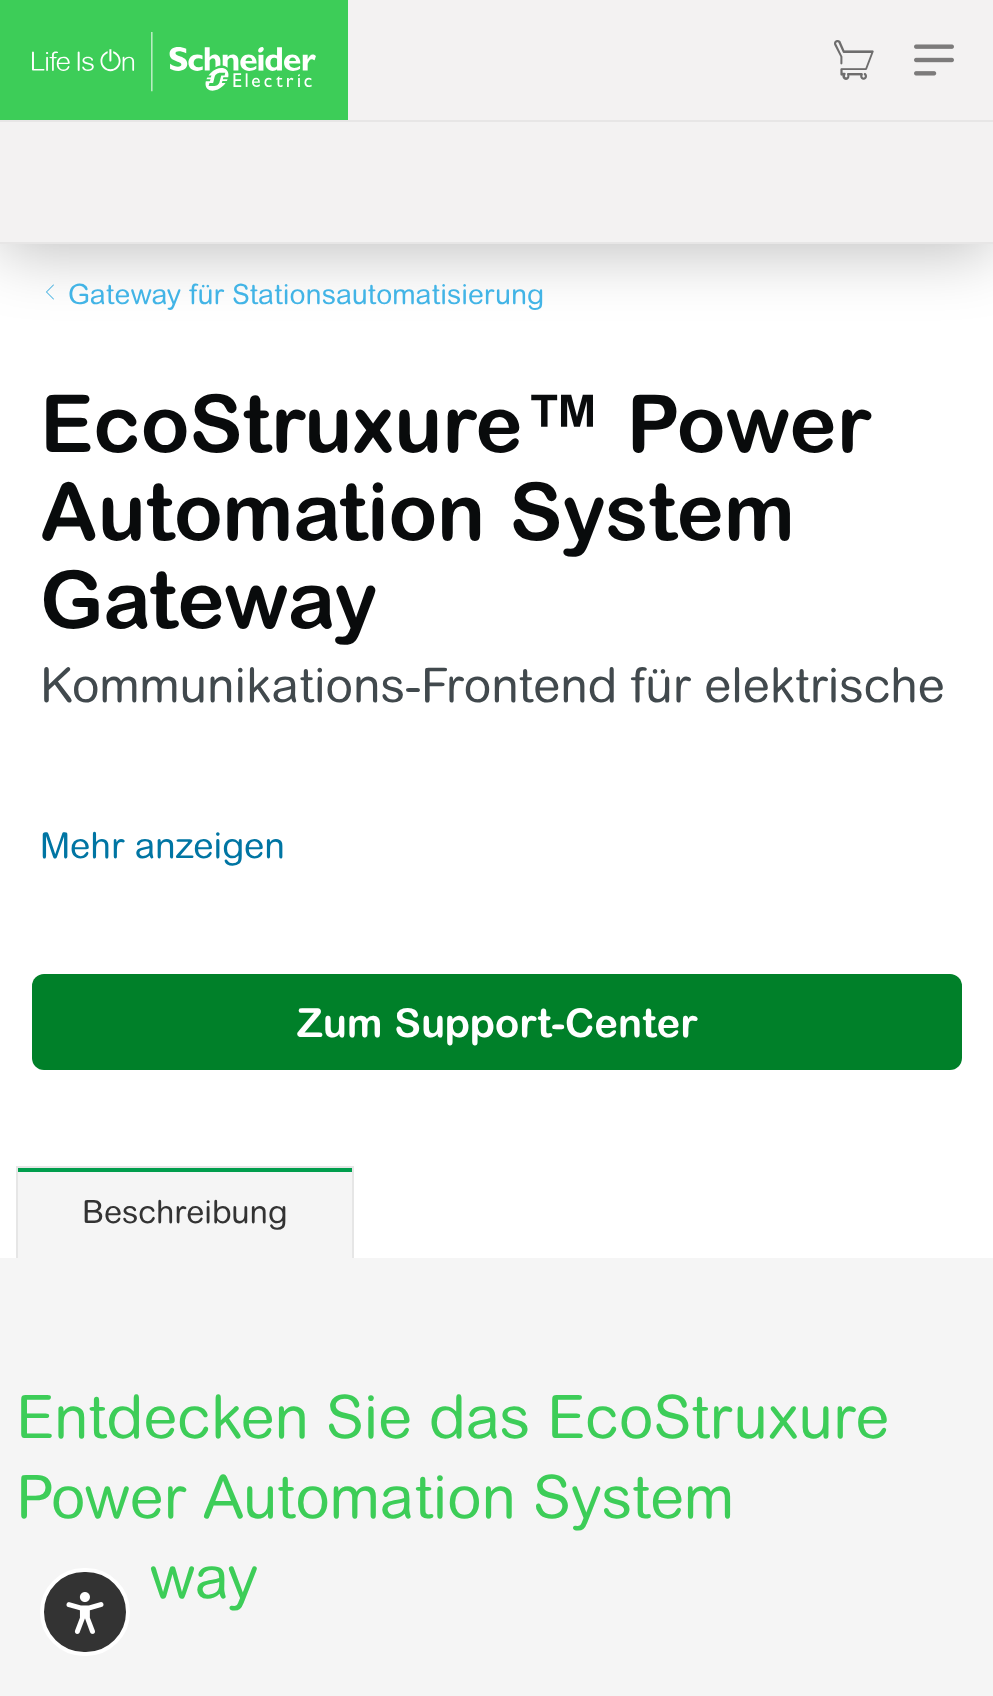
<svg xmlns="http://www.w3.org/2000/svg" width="993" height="1696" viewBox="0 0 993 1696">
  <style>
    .t1 { font: 28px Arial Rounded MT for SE; fill: #42b4e6; }
    .t2 { font: bold 80px Arial Rounded MT for SE; fill: #090b0c; }
    .t3 { font: 48px Arial Rounded MT for SE; fill: #41494d; }
    .t4 { font: 36px Arial Rounded MT for SE; fill: #0075a3; }
    .t5 { font: bold 40px Arial Rounded MT for SE; fill: #fff; }
    .t6 { font: 32px Arial Rounded MT for SE; fill: #333; }
    .t7 { font: 60px Arial Rounded MT for SE; fill: #3dcd58; }
  </style>
  <rect width="100%" height="100%" fill="#fff"/>
  <image x="46" y="284" width="8" height="16" href="images/4.png"/>
  <rect x="0" y="8" width="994" height="244" fill="#00000040" filter="blur(32px)"/>
  <rect x="0" y="0" width="993" height="242" fill="#f3f2f2"/>
  <rect x="0" y="242" width="993" height="2" fill="#e7e6e6"/>
  <rect x="0" y="0" width="348" height="120" fill="#3dcd58"/>
  <image x="32" y="32" width="284" height="60" href="images/1.png"/>
  <image x="834" y="40" width="40" height="40" href="images/2.png"/>
  <image x="914" y="44" width="40" height="32" href="images/3.png"/>
  <rect x="0" y="120" width="993" height="2" fill="#e7e6e6"/>
  <text x="68" y="304" class="t1">Gateway für Stationsautomatisierung</text>
  <text x="40" y="452" class="t2">EcoStruxure™ Power</text>
  <text x="40" y="540" class="t2">Automation System</text>
  <text x="40" y="628" class="t2">Gateway</text>
  <text x="40" y="702" class="t3">Kommunikations-Frontend für elektrische</text>
  <text x="40" y="858" class="t4">Mehr anzeigen</text>
  <rect x="32" y="974" width="930" height="96" rx="12" fill="#008029"/>
  <text x="297" y="1037" class="t5">Zum Support-Center</text>
  <rect x="18" y="1172" width="334" height="86" fill="#f5f5f5"/>
  <rect x="16" y="1166" width="338" height="2" fill="#e6e6e6"/>
  <rect x="352" y="1166" width="2" height="92" fill="#e6e6e6"/>
  <rect x="16" y="1166" width="2" height="92" fill="#e6e6e6"/>
  <rect x="18" y="1168" width="334" height="4" fill="#009e4d"/>
  <text x="82" y="1223" class="t6">Beschreibung</text>
  <rect x="0" y="1258" width="993" height="438" fill="#f5f5f5"/>
  <text x="16" y="1438" class="t7">Entdecken Sie das EcoStruxure</text>
  <text x="16" y="1518" class="t7">Power Automation System</text>
  <text x="150" y="1598" class="t7">way</text>
  <rect x="42" y="1570" width="86" height="84" rx="42" fill="#333" stroke="#fff" stroke-width="4"/>
  <image x="66" y="1592" width="38" height="42" href="images/5.png"/>
</svg>
